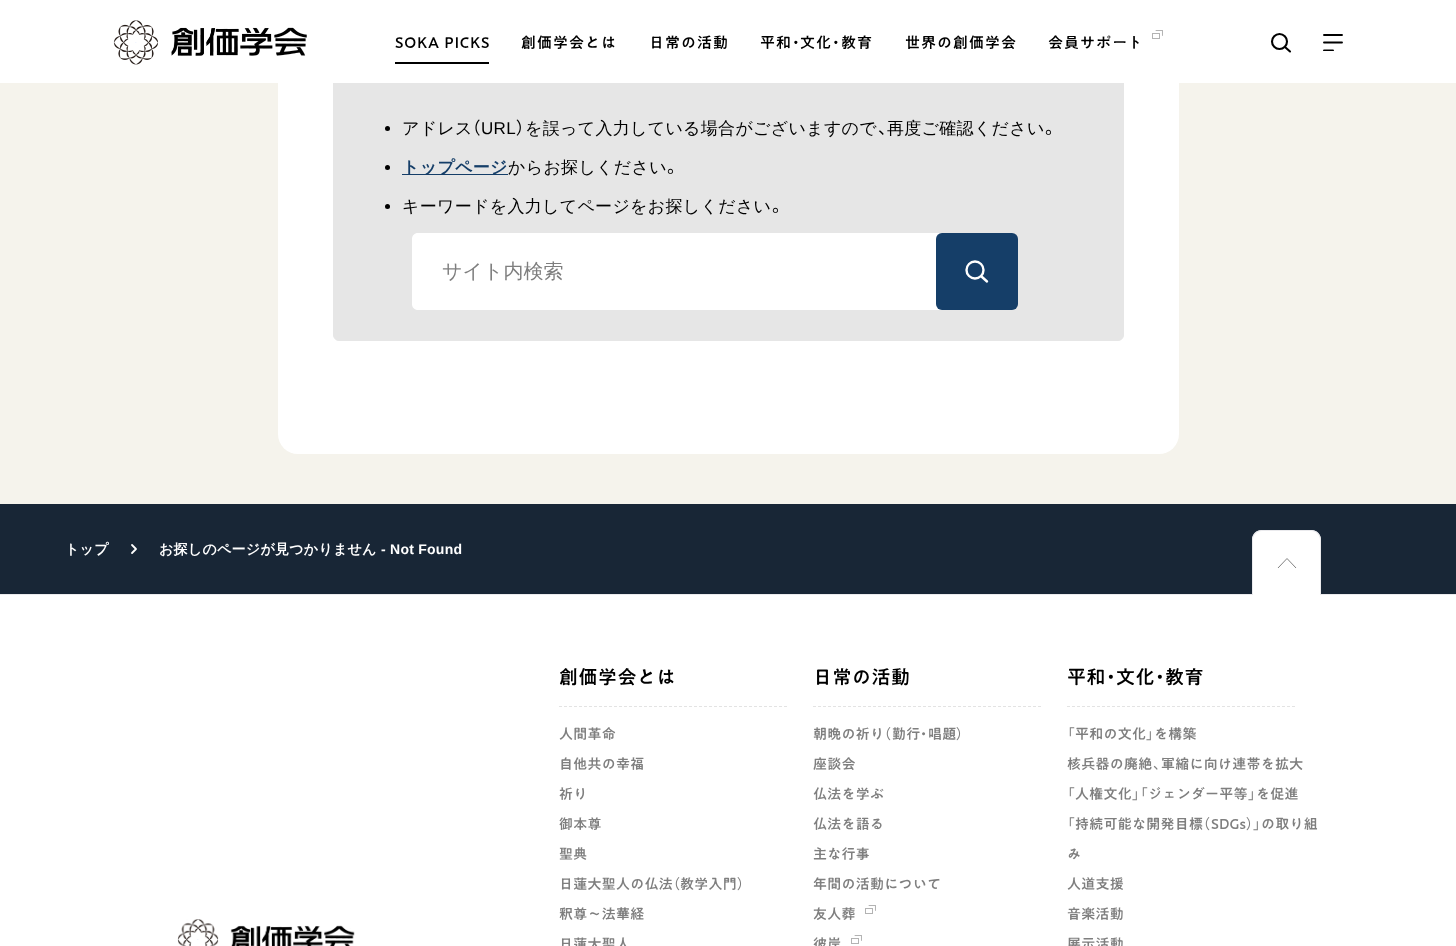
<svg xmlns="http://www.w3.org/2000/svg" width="1456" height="946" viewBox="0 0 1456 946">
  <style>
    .t1 { font: 500 15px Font; letter-spacing: 1px; fill: #000; }
    .t2 { font: 15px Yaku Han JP; letter-spacing: 1px; fill: #000; }
    .t3 { font: 500 17px WenQuanYi Zen Hei; letter-spacing: 0.3px; fill: #000; }
    .t4 { font: 17px Yaku Han JP; letter-spacing: 0.3px; fill: #000; }
    .t5 { font: 17px Liberation Sans; letter-spacing: 0.3px; fill: #000; }
    .t6 { font: bold 17px WenQuanYi Zen Hei; letter-spacing: 0.3px; fill: #153e68; }
    .t7 { font: 500 20px WenQuanYi Zen Hei; fill: #7f7f7f; }
    .t8 { font: bold 14px WenQuanYi Zen Hei; letter-spacing: 0.25px; fill: #fff; }
    .t9 { font: bold 14px Liberation Sans; letter-spacing: 0.25px; fill: #fff; }
    .t10 { font: 500 19px Font; letter-spacing: 0.5px; fill: #000; }
    .t11 { font: 500 14px Font; letter-spacing: 0.25px; fill: #7f7f7f; }
    .t12 { font: 14px Yaku Han JP; letter-spacing: 0.25px; fill: #7f7f7f; }
    .t13 { font: 19px Yaku Han JP; letter-spacing: 0.5px; fill: #000; }
  </style>
  <defs>
    <clipPath id="clip1"><rect x="1323" y="34" width="20" height="17"/></clipPath>
    <clipPath id="clip2"><rect x="1277" y="558" width="20" height="10"/></clipPath>
  </defs>
  <rect width="100%" height="100%" fill="#fff"/>
  <rect x="0" y="83" width="1456" height="421" fill="#f5f3ec"/>
  <rect x="278" y="-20" width="901" height="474" rx="20" fill="#fff"/>
  <rect x="333.5" y="73.5" width="790" height="267" rx="5.5" fill="#e6e6e6" stroke="#e6e6e6"/>
  <rect x="333" y="73" width="791" height="10" fill="#fff"/>
  <image x="113" y="20" width="194" height="45" href="images/1.png"/>
  <text x="395" y="48" class="t1">SOKA PICKS</text>
  <rect x="395" y="62" width="94" height="2" fill="#000"/>
  <text x="521" y="48" class="t1">創価学会とは</text>
  <text x="649" y="48" class="t1">日常の活動</text>
  <text x="760" y="48" class="t1">平和</text>
  <text x="792" y="48" class="t2">・</text>
  <text x="800" y="48" class="t1">文化</text>
  <text x="832" y="48" class="t2">・</text>
  <text x="841" y="48" class="t1">教育</text>
  <text x="905" y="48" class="t1">世界の創価学会</text>
  <image x="1152" y="30" width="11" height="9" href="images/2.png"/>
  <text x="1048" y="48" class="t1">会員サポート</text>
  <circle cx="1279.5" cy="41.5" r="7.5" fill="none" stroke="#000" stroke-width="2.1"/>
  <path d="M1285.5 47.5L1290 51.5" fill="none" stroke="#000" stroke-width="2.1" stroke-linecap="round"/>
  <path d="M1324 35H1342M1324 42.5H1342" fill="none" stroke="#000" stroke-width="1.9" stroke-linecap="round" stroke-linejoin="round"/>
  <g clip-path="url(#clip1)">
    <path d="M1324 50.5H1333" fill="none" stroke="#000" stroke-width="1.9" stroke-linecap="round" stroke-linejoin="round"/>
  </g>
  <circle cx="387.5" cy="128.5" r="2.5" fill="#000"/>
  <text x="402" y="134" class="t3">アドレス</text>
  <text x="472" y="134" class="t4">（</text>
  <text x="481" y="134" class="t5">URL</text>
  <text x="516" y="134" class="t4">）</text>
  <text x="525" y="134" class="t3">を誤って入力している場合がございますので</text>
  <text x="887" y="134" class="t3">再度ご確認ください</text>
  <text x="878" y="134" class="t4">、</text>
  <text x="1045" y="134" class="t4">。</text>
  <circle cx="387.5" cy="167.5" r="2.5" fill="#000"/>
  <rect x="402" y="174" width="106" height="1" fill="#153e68"/>
  <text x="402" y="173" class="t6">トップページ</text>
  <text x="508" y="173" class="t3">からお探しください</text>
  <text x="667" y="173" class="t4">。</text>
  <circle cx="387.5" cy="206.5" r="2.5" fill="#000"/>
  <text x="402" y="212" class="t3">キーワードを入力してページをお探しください</text>
  <text x="772" y="212" class="t4">。</text>
  <path d="M418 233H942V310H418C414.5 310 412 307.5 412 304V239C412 235.5 414.5 233 418 233Z" fill="#fff"/>
  <text x="442" y="278" class="t7">サイト内検索</text>
  <rect x="936" y="233" width="82" height="77" rx="6" fill="#153e68"/>
  <circle cx="975" cy="270" r="8.5" fill="none" stroke="#fff" stroke-width="2.4"/>
  <path d="M981.5 276.5L987 281.5" fill="none" stroke="#fff" stroke-width="2.4" stroke-linecap="round"/>
  <rect x="0" y="504" width="1456" height="90" fill="#182636"/>
  <text x="65" y="554" class="t8">トップ</text>
  <path d="M132 553L136 549L132 545" fill="none" stroke="#fff" stroke-width="1.8" stroke-linecap="round" stroke-linejoin="round"/>
  <text x="159" y="554" class="t8">お探しのページが見つかりません</text>
  <text x="381" y="554" class="t9">- Not Found</text>
  <rect x="0" y="594" width="1456" height="1" fill="#eaeaed"/>
  <path d="M1262 530H1311C1316.5 530 1321 534.5 1321 540V595H1252V540C1252 534.5 1256.5 530 1262 530Z" fill="#fff"/>
  <g clip-path="url(#clip2)">
    <path d="M1277.5 568.5L1287 558.5L1296.5 568.5" fill="none" stroke="#808080"/>
  </g>
  <path d="M1262 530H1311C1317 530 1321 534 1321 540V595H1252V540C1252 534 1256 530 1262 530ZM1262 531H1311C1316 531 1320 535 1320 540V595H1253V540C1253 535 1257 531 1262 531Z" fill="#eaeaed" fill-rule="evenodd"/>
  <image x="177" y="919" width="178" height="27" href="images/3.png"/>
  <text x="559" y="684" class="t10">創価学会とは</text>
  <path d="M559 706.5H787" fill="none" stroke="#e3e3e3" stroke-dasharray="3 2"/>
  <text x="559" y="739" class="t11">人間革命</text>
  <text x="559" y="769" class="t11">自他共の幸福</text>
  <text x="559" y="799" class="t11">祈り</text>
  <text x="559" y="829" class="t11">御本尊</text>
  <text x="559" y="859" class="t11">聖典</text>
  <text x="559" y="889" class="t11">日蓮大聖人の仏法</text>
  <text x="673" y="889" class="t12">（</text>
  <text x="680" y="889" class="t11">教学入門</text>
  <text x="737" y="889" class="t12">）</text>
  <text x="559" y="919" class="t11">釈尊～法華経</text>
  <text x="559" y="949" class="t11">日蓮大聖人</text>
  <text x="813" y="684" class="t10">日常の活動</text>
  <path d="M813 706.5H1041" fill="none" stroke="#e3e3e3" stroke-dasharray="3 2"/>
  <text x="813" y="739" class="t11">朝晩の祈り</text>
  <text x="884" y="739" class="t12">（</text>
  <text x="892" y="739" class="t11">勤行</text>
  <text x="920" y="739" class="t12">・</text>
  <text x="928" y="739" class="t11">唱題</text>
  <text x="956" y="739" class="t12">）</text>
  <text x="813" y="769" class="t11">座談会</text>
  <text x="813" y="799" class="t11">仏法を学ぶ</text>
  <text x="813" y="829" class="t11">仏法を語る</text>
  <text x="813" y="859" class="t11">主な行事</text>
  <text x="813" y="889" class="t11">年間の活動について</text>
  <image x="865" y="905" width="11" height="9" href="images/2.png"/>
  <text x="813" y="919" class="t11">友人葬</text>
  <image x="851" y="935" width="11" height="9" href="images/2.png"/>
  <text x="813" y="949" class="t11">彼岸</text>
  <text x="1067" y="684" class="t10">平和</text>
  <text x="1106" y="684" class="t13">・</text>
  <text x="1116" y="684" class="t10">文化</text>
  <text x="1155" y="684" class="t13">・</text>
  <text x="1165" y="684" class="t10">教育</text>
  <path d="M1067 706.5H1295" fill="none" stroke="#e3e3e3" stroke-dasharray="3 2"/>
  <text x="1067" y="739" class="t12">「</text>
  <text x="1075" y="739" class="t11">平和の文化</text>
  <text x="1146" y="739" class="t12">」</text>
  <text x="1154" y="739" class="t11">を構築</text>
  <text x="1067" y="769" class="t11">核兵器の廃絶</text>
  <text x="1153" y="769" class="t12">、</text>
  <text x="1161" y="769" class="t11">軍縮に向け連帯を拡大</text>
  <text x="1067" y="799" class="t12">「</text>
  <text x="1075" y="799" class="t11">人権文化</text>
  <text x="1132" y="799" class="t12">」「</text>
  <text x="1148" y="799" class="t11">ジェンダー平等</text>
  <text x="1248" y="799" class="t12">」</text>
  <text x="1256" y="799" class="t11">を促進</text>
  <text x="1067" y="829" class="t12">「</text>
  <text x="1075" y="829" class="t11">持続可能な開発目標</text>
  <text x="1203" y="829" class="t12">（</text>
  <text x="1211" y="829" class="t11">SDGs</text>
  <text x="1246" y="829" class="t12">）」</text>
  <text x="1261" y="829" class="t11">の取り組</text>
  <text x="1067" y="859" class="t11">み</text>
  <text x="1067" y="889" class="t11">人道支援</text>
  <text x="1067" y="919" class="t11">音楽活動</text>
  <text x="1067" y="949" class="t11">展示活動</text>
</svg>
